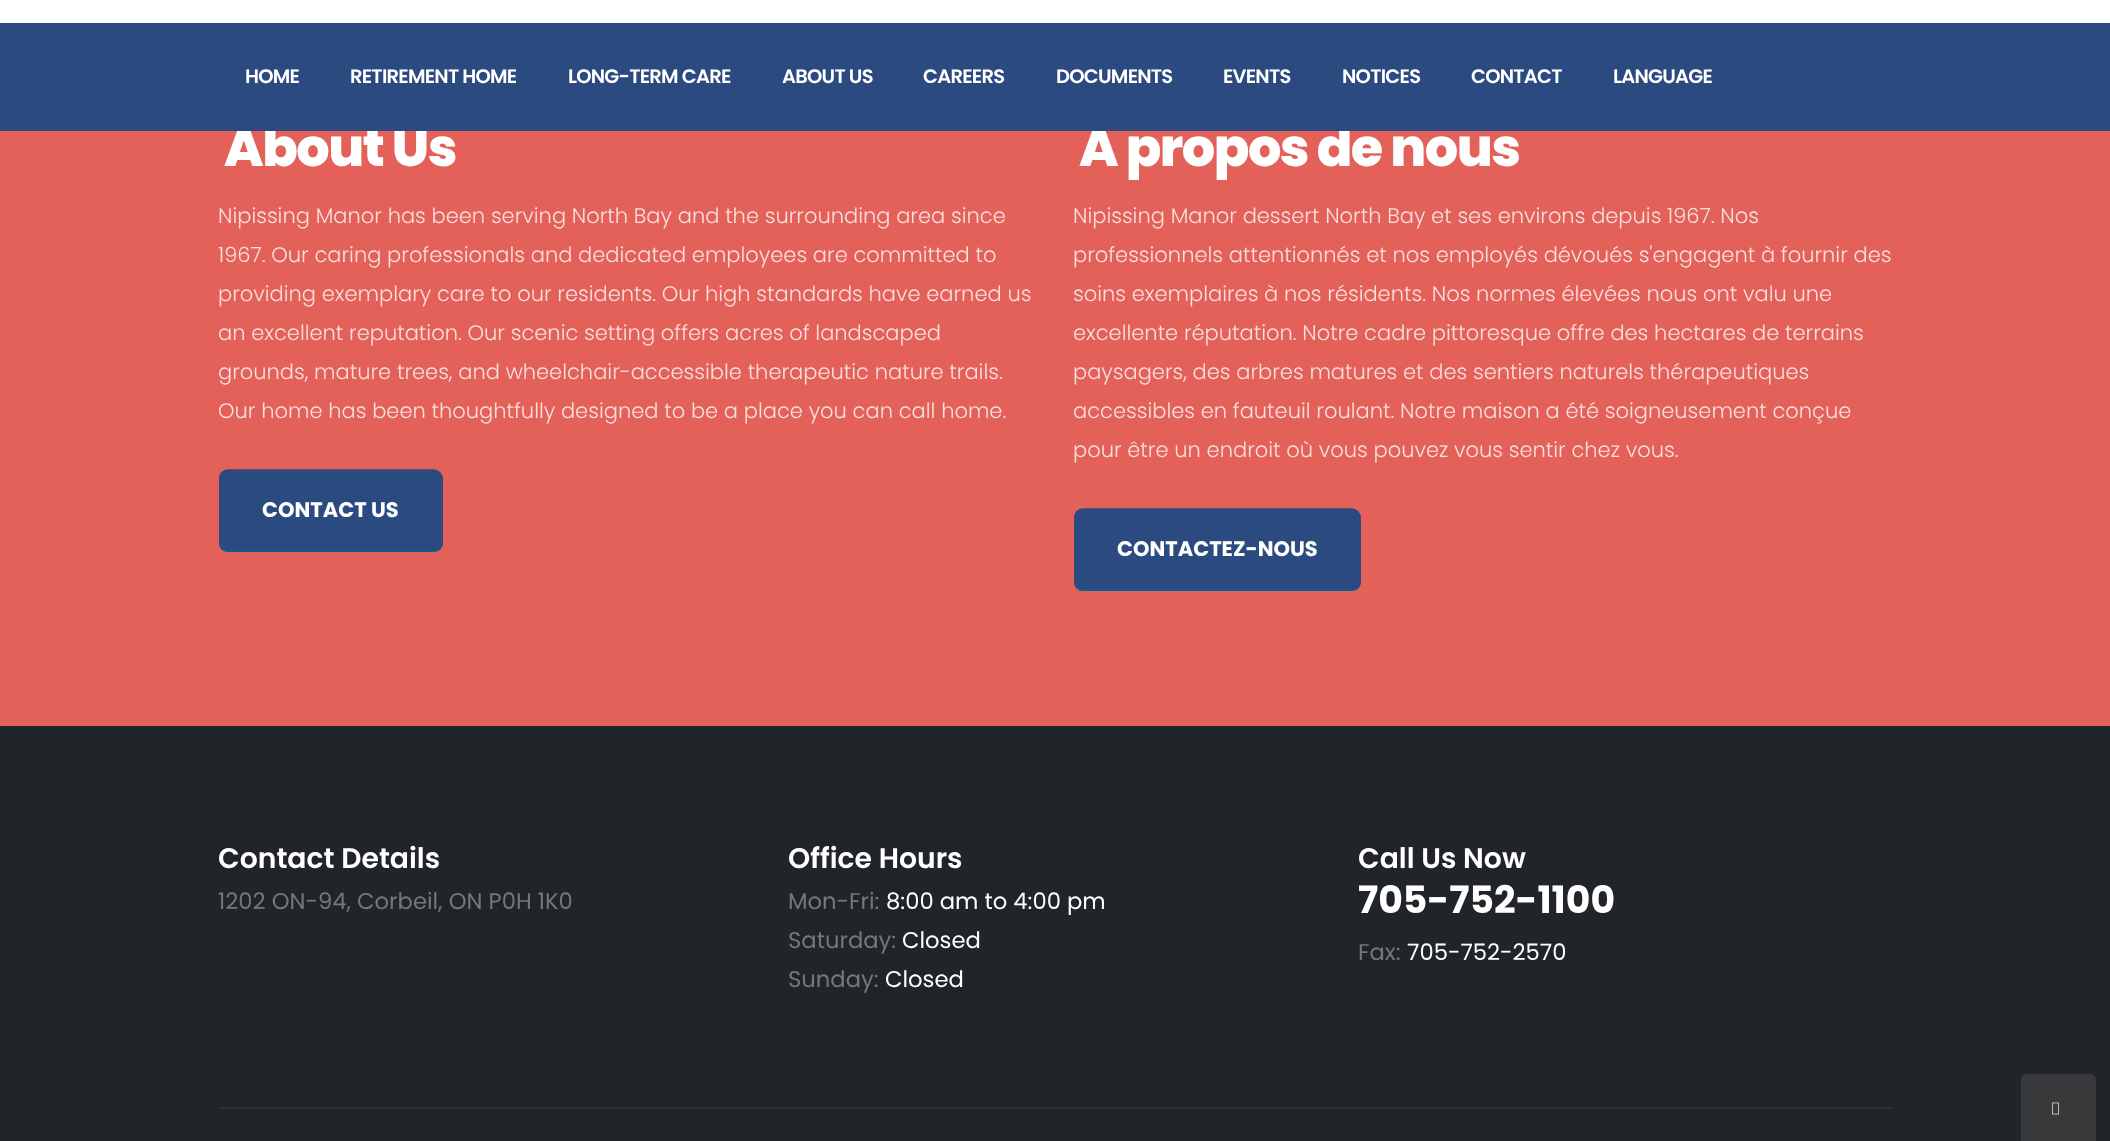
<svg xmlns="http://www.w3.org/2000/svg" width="2110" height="1141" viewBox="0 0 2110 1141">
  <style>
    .t1 { font: 800 52.5px Poppins; letter-spacing: -1.5px; fill: #fff; }
    .t2 { font: 600 19.5px Poppins; letter-spacing: -0.75px; fill: #fff; }
    .t3 { font: 300 21px Poppins; fill: #f9dfde; }
    .t4 { font: bold 21px Poppins; fill: #fff; }
    .t5 { font: 600 28.25px Poppins; fill: #fff; }
    .t6 { font: 22.7px Poppins; fill: #777; }
    .t7 { font: 22.7px Poppins; fill: #fff; }
    .t8 { font: bold 37.75px Poppins; fill: #fff; }
  </style>
  <rect width="100%" height="100%" fill="#e36159"/>
  <rect x="0" y="0" width="2110" height="23" fill="#fff"/>
  <text x="224" y="166" class="t1">About Us</text>
  <text x="1079" y="166" class="t1">À propos de nous</text>
  <rect x="0" y="23" width="2110" height="108" fill="#2b4b80"/>
  <text x="245" y="83" class="t2">HOME</text>
  <text x="350" y="83" class="t2">RETIREMENT HOME</text>
  <text x="568" y="83" class="t2">LONG-TERM CARE</text>
  <text x="782" y="83" class="t2">ABOUT US</text>
  <text x="923" y="83" class="t2">CAREERS</text>
  <text x="1056" y="83" class="t2">DOCUMENTS</text>
  <text x="1223" y="83" class="t2">EVENTS</text>
  <text x="1342" y="83" class="t2">NOTICES</text>
  <text x="1471" y="83" class="t2">CONTACT</text>
  <text x="1613" y="83" class="t2">LANGUAGE</text>
  <text x="218" y="223" class="t3">Nipissing Manor has been serving North Bay and the surrounding area since</text>
  <text x="218" y="262" class="t3">1967. Our caring professionals and dedicated employees are committed to</text>
  <text x="218" y="301" class="t3">providing exemplary care to our residents. Our high standards have earned us</text>
  <text x="218" y="340" class="t3">an excellent reputation. Our scenic setting offers acres of landscaped</text>
  <text x="218" y="379" class="t3">grounds, mature trees, and wheelchair-accessible therapeutic nature trails.</text>
  <text x="218" y="418" class="t3">Our home has been thoughtfully designed to be a place you can call home.</text>
  <rect x="219" y="470" width="224" height="82" rx="9" fill="#2b4b80"/>
  <path d="M439.5 549C438 550.5 435.5 551 433.5 551H228C226 551 223.5 550.5 222 549" fill="none" stroke="#069" stroke-width="1.5"/>
  <path d="M222 549C220.5 547.5 220 545 220 543V478.5C220 476.5 220.5 474 222 472.5C223.5 471 226 470 228 470H433.5C435.5 470 438 471 439.5 472.5C441 474 442 476.5 442 478.5V543C442 545 441 547.5 439.5 549" fill="none" stroke="#2b4b80" stroke-width="1.5"/>
  <text x="262" y="517" class="t4">CONTACT US</text>
  <text x="1073" y="223" class="t3">Nipissing Manor dessert North Bay et ses environs depuis 1967. Nos</text>
  <text x="1073" y="262" class="t3">professionnels attentionnés et nos employés dévoués s'engagent à fournir des</text>
  <text x="1073" y="301" class="t3">soins exemplaires à nos résidents. Nos normes élevées nous ont valu une</text>
  <text x="1073" y="340" class="t3">excellente réputation. Notre cadre pittoresque offre des hectares de terrains</text>
  <text x="1073" y="379" class="t3">paysagers, des arbres matures et des sentiers naturels thérapeutiques</text>
  <text x="1073" y="418" class="t3">accessibles en fauteuil roulant. Notre maison a été soigneusement conçue</text>
  <text x="1073" y="457" class="t3">pour être un endroit où vous pouvez vous sentir chez vous.</text>
  <rect x="1074" y="509" width="287" height="82" rx="9" fill="#2b4b80"/>
  <path d="M1357.5 588C1356 589.5 1353.5 590 1351.5 590H1083C1081 590 1078.5 589.5 1077 588" fill="none" stroke="#069" stroke-width="1.5"/>
  <path d="M1077 588C1075.5 586.5 1075 584 1075 582V517.5C1075 515.5 1075.5 513 1077 511.5C1078.5 510 1081 509 1083 509H1351.5C1353.5 509 1356 510 1357.5 511.5C1359 513 1360 515.5 1360 517.5V582C1360 584 1359 586.5 1357.5 588" fill="none" stroke="#2b4b80" stroke-width="1.5"/>
  <text x="1117" y="556" class="t4">CONTACTEZ-NOUS</text>
  <rect x="0" y="726" width="2110" height="415" fill="#212529"/>
  <text x="218" y="868" class="t5">Contact Details</text>
  <text x="218" y="909" class="t6">1202 ON-94, Corbeil, ON P0H 1K0</text>
  <text x="788" y="868" class="t5">Office Hours</text>
  <text x="788" y="909" class="t6">Mon-Fri:</text>
  <text x="886" y="909" class="t7">8:00 am to 4:00 pm</text>
  <text x="788" y="948" class="t6">Saturday:</text>
  <text x="902" y="948" class="t7">Closed</text>
  <text x="788" y="987" class="t6">Sunday:</text>
  <text x="885" y="987" class="t7">Closed</text>
  <text x="1358" y="868" class="t5">Call Us Now</text>
  <text x="1358" y="913" class="t8">705-752-1100</text>
  <text x="1358" y="960" class="t6">Fax:</text>
  <text x="1407" y="960" class="t7">705-752-2570</text>
  <rect x="219" y="1107" width="1674" height="2" fill="#2c3034"/>
  <path d="M2027 1074H2090C2093.5 1074 2096 1076.5 2096 1080V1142H2021V1080C2021 1076.5 2023.5 1074 2027 1074Z" fill="#38393a"/>
  <image x="2052" y="1102" width="7" height="13" href="images/1.png"/>
</svg>
